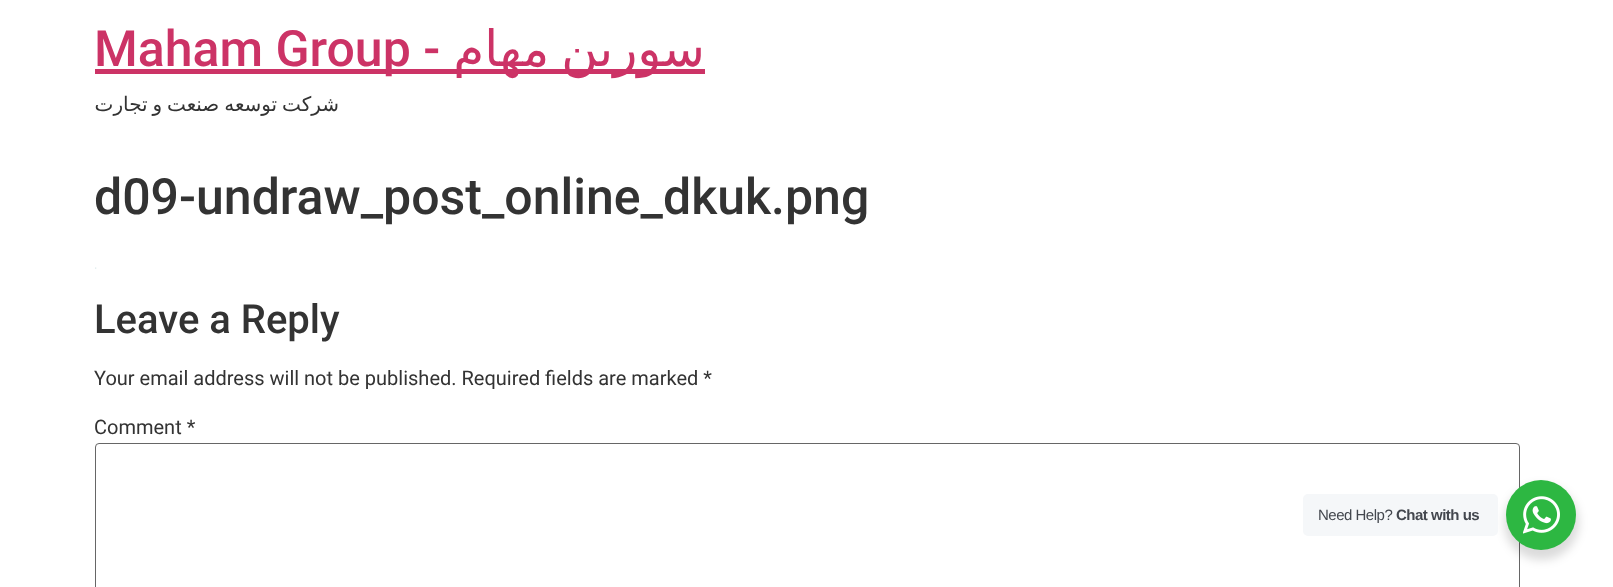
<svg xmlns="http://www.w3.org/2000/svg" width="1613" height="587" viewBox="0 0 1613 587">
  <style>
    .t1 { font: 500 50px Roboto; fill: #c36; }
    .t2 { font: 50px DejaVu Sans; direction: rtl; fill: #c36; }
    .t3 { font: 20px DejaVu Sans; direction: rtl; fill: #333; }
    .t4 { font: 500 50px Roboto; fill: #333; }
    .t5 { font: 500 40px Roboto; fill: #333; }
    .t6 { font: 20px Roboto; fill: #333; }
    .t7 { font: 15px Liberation Sans; letter-spacing: -0.5px; fill: #43474e; }
    .t8 { font: bold 15px Liberation Sans; letter-spacing: -0.5px; fill: #43474e; }
  </style>
  <rect width="100%" height="100%" fill="#fff"/>
  <rect x="95" y="69" width="610" height="5" fill="#c36"/>
  <text x="94" y="66" class="t1">Maham Group -</text>
  <text x="705" y="66" word-spacing="-4" class="t2">سورین مهام</text>
  <text x="339" y="111" word-spacing="-1.5" class="t3">شرکت توسعه صنعت و تجارت</text>
  <text x="94" y="214" class="t4">d09-undraw_post_online_dkuk.png</text>
  <image x="95" y="267" width="2" height="2" href="images/1.png"/>
  <text x="94" y="333" class="t5">Leave a Reply</text>
  <text x="94" y="385" class="t6">Your email address will not be published. Required fields are marked *</text>
  <text x="94" y="434" class="t6">Comment *</text>
  <rect x="95.5" y="443.5" width="1424" height="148" rx="3.5" fill="none" stroke="#666"/>
  <rect x="1504" y="485" width="75" height="75" rx="37.5" fill="#00000024" filter="blur(5px)"/>
  <rect x="1303" y="494" width="195" height="42" rx="5" fill="#f5f7f9"/>
  <text x="1318" y="520" class="t7">Need Help?</text>
  <text x="1396" y="520" class="t8">Chat with us</text>
  <circle cx="1541" cy="515" r="35" fill="#2db742"/>
  <image x="1523" y="496" width="37" height="38" href="images/2.png"/>
</svg>
